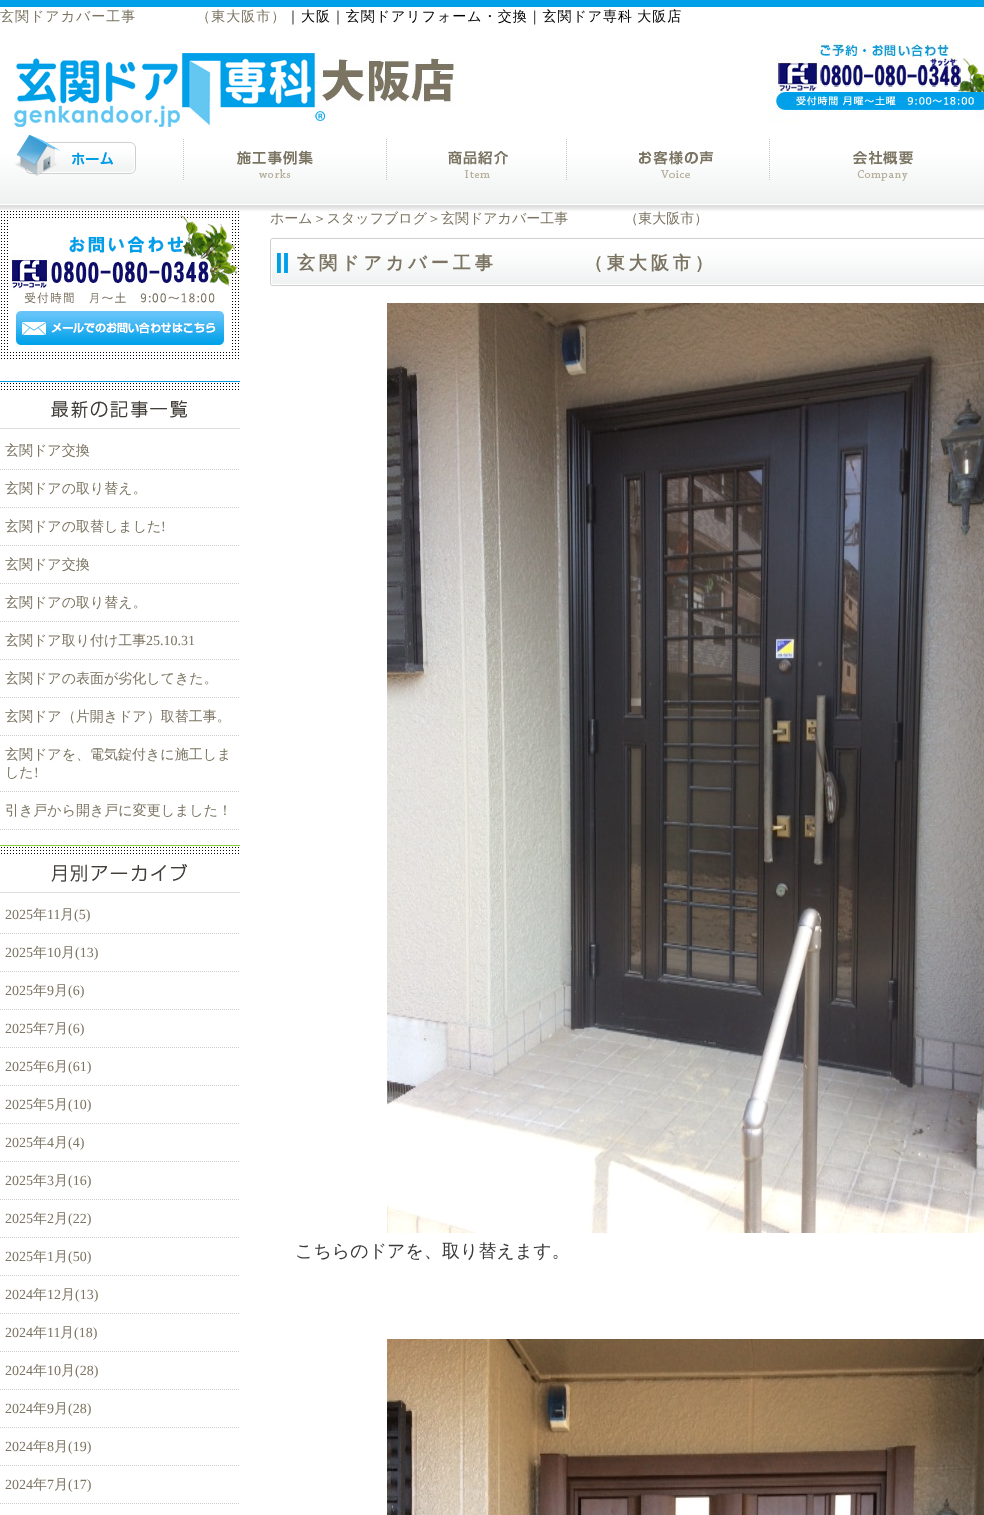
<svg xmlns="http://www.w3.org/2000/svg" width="984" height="1515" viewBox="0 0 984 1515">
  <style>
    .t1 { font: 500 14px WenQuanYi Zen Hei; letter-spacing: 1px; fill: #7b7462; }
    .t2 { font: 500 14px WenQuanYi Zen Hei; letter-spacing: 1px; fill: #000; }
    .t3 { font: 500 14px WenQuanYi Zen Hei; fill: #7b7462; }
    .t4 { font: 14px Liberation Serif; fill: #7b7462; }
    .t5 { font: bold 18px WenQuanYi Zen Hei; letter-spacing: 4px; fill: #7b7462; }
    .t6 { font: 500 18px WenQuanYi Zen Hei; fill: #3a3a3a; }
  </style>
  <rect width="100%" height="100%" fill="#fff"/>
  <image x="0" y="0" width="984" height="211" href="images/1.png"/>
  <text x="0" y="21" class="t1">玄関ドアカバー工事　　　　（東大阪市）</text>
  <text x="286" y="21" class="t2">｜</text>
  <text x="301" y="21" word-spacing="-1" class="t2">大阪｜玄関ドアリフォーム・交換｜玄関ドア専科 大阪店</text>
  <image x="14" y="42" width="970" height="85" href="images/2.png"/>
  <image x="14" y="134" width="122" height="42" href="images/3.png"/>
  <image x="183" y="139" width="130" height="41" href="images/4.png"/>
  <image x="386" y="139" width="181" height="41" href="images/5.png"/>
  <image x="638" y="139" width="132" height="41" href="images/6.png"/>
  <image x="853" y="150" width="60" height="31" href="images/7.png"/>
  <image x="0" y="210" width="240" height="149" href="images/8.png"/>
  <image x="0" y="381" width="240" height="48" href="images/9.png"/>
  <path d="M0 469.5H240" fill="none" stroke="#cecece" stroke-dasharray="1 1"/>
  <text x="5" y="455" class="t3">玄関ドア交換</text>
  <path d="M0 507.5H240" fill="none" stroke="#cecece" stroke-dasharray="1 1"/>
  <text x="5" y="493" class="t3">玄関ドアの取り替え。</text>
  <path d="M0 545.5H240" fill="none" stroke="#cecece" stroke-dasharray="1 1"/>
  <text x="5" y="531" class="t3">玄関ドアの取替しました</text>
  <text x="161" y="531" class="t4">!</text>
  <path d="M0 583.5H240" fill="none" stroke="#cecece" stroke-dasharray="1 1"/>
  <text x="5" y="569" class="t3">玄関ドア交換</text>
  <path d="M0 621.5H240" fill="none" stroke="#cecece" stroke-dasharray="1 1"/>
  <text x="5" y="607" class="t3">玄関ドアの取り替え。</text>
  <path d="M0 659.5H240" fill="none" stroke="#cecece" stroke-dasharray="1 1"/>
  <text x="5" y="645" class="t3">玄関ドア取り付け工事</text>
  <text x="146" y="645" class="t4">25.10.31</text>
  <path d="M0 697.5H240" fill="none" stroke="#cecece" stroke-dasharray="1 1"/>
  <text x="5" y="683" class="t3">玄関ドアの表面が劣化してきた。</text>
  <path d="M0 735.5H240" fill="none" stroke="#cecece" stroke-dasharray="1 1"/>
  <text x="5" y="721" class="t3">玄関ドア（片開きドア）取替工事。</text>
  <path d="M0 791.5H240" fill="none" stroke="#cecece" stroke-dasharray="1 1"/>
  <text x="5" y="759" class="t3">玄関ドアを、電気錠付きに施工しま</text>
  <text x="5" y="777" class="t3">した</text>
  <text x="34" y="777" class="t4">!</text>
  <path d="M0 829.5H240" fill="none" stroke="#cecece" stroke-dasharray="1 1"/>
  <text x="5" y="815" class="t3">引き戸から開き戸に変更しました！</text>
  <image x="0" y="845" width="240" height="48" href="images/10.png"/>
  <path d="M0 933.5H240" fill="none" stroke="#cecece" stroke-dasharray="1 1"/>
  <text x="5" y="919" class="t4">2025</text>
  <text x="33" y="919" class="t3">年</text>
  <text x="47" y="919" class="t4">11</text>
  <text x="60" y="919" class="t3">月</text>
  <text x="74" y="919" class="t4">(5)</text>
  <path d="M0 971.5H240" fill="none" stroke="#cecece" stroke-dasharray="1 1"/>
  <text x="5" y="957" class="t4">2025</text>
  <text x="33" y="957" class="t3">年</text>
  <text x="47" y="957" class="t4">10</text>
  <text x="61" y="957" class="t3">月</text>
  <text x="75" y="957" class="t4">(13)</text>
  <path d="M0 1009.5H240" fill="none" stroke="#cecece" stroke-dasharray="1 1"/>
  <text x="5" y="995" class="t4">2025</text>
  <text x="33" y="995" class="t3">年</text>
  <text x="47" y="995" class="t4">9</text>
  <text x="54" y="995" class="t3">月</text>
  <text x="68" y="995" class="t4">(6)</text>
  <path d="M0 1047.5H240" fill="none" stroke="#cecece" stroke-dasharray="1 1"/>
  <text x="5" y="1033" class="t4">2025</text>
  <text x="33" y="1033" class="t3">年</text>
  <text x="47" y="1033" class="t4">7</text>
  <text x="54" y="1033" class="t3">月</text>
  <text x="68" y="1033" class="t4">(6)</text>
  <path d="M0 1085.5H240" fill="none" stroke="#cecece" stroke-dasharray="1 1"/>
  <text x="5" y="1071" class="t4">2025</text>
  <text x="33" y="1071" class="t3">年</text>
  <text x="47" y="1071" class="t4">6</text>
  <text x="54" y="1071" class="t3">月</text>
  <text x="68" y="1071" class="t4">(61)</text>
  <path d="M0 1123.5H240" fill="none" stroke="#cecece" stroke-dasharray="1 1"/>
  <text x="5" y="1109" class="t4">2025</text>
  <text x="33" y="1109" class="t3">年</text>
  <text x="47" y="1109" class="t4">5</text>
  <text x="54" y="1109" class="t3">月</text>
  <text x="68" y="1109" class="t4">(10)</text>
  <path d="M0 1161.5H240" fill="none" stroke="#cecece" stroke-dasharray="1 1"/>
  <text x="5" y="1147" class="t4">2025</text>
  <text x="33" y="1147" class="t3">年</text>
  <text x="47" y="1147" class="t4">4</text>
  <text x="54" y="1147" class="t3">月</text>
  <text x="68" y="1147" class="t4">(4)</text>
  <path d="M0 1199.5H240" fill="none" stroke="#cecece" stroke-dasharray="1 1"/>
  <text x="5" y="1185" class="t4">2025</text>
  <text x="33" y="1185" class="t3">年</text>
  <text x="47" y="1185" class="t4">3</text>
  <text x="54" y="1185" class="t3">月</text>
  <text x="68" y="1185" class="t4">(16)</text>
  <path d="M0 1237.5H240" fill="none" stroke="#cecece" stroke-dasharray="1 1"/>
  <text x="5" y="1223" class="t4">2025</text>
  <text x="33" y="1223" class="t3">年</text>
  <text x="47" y="1223" class="t4">2</text>
  <text x="54" y="1223" class="t3">月</text>
  <text x="68" y="1223" class="t4">(22)</text>
  <path d="M0 1275.5H240" fill="none" stroke="#cecece" stroke-dasharray="1 1"/>
  <text x="5" y="1261" class="t4">2025</text>
  <text x="33" y="1261" class="t3">年</text>
  <text x="47" y="1261" class="t4">1</text>
  <text x="54" y="1261" class="t3">月</text>
  <text x="68" y="1261" class="t4">(50)</text>
  <path d="M0 1313.5H240" fill="none" stroke="#cecece" stroke-dasharray="1 1"/>
  <text x="5" y="1299" class="t4">2024</text>
  <text x="33" y="1299" class="t3">年</text>
  <text x="47" y="1299" class="t4">12</text>
  <text x="61" y="1299" class="t3">月</text>
  <text x="75" y="1299" class="t4">(13)</text>
  <path d="M0 1351.5H240" fill="none" stroke="#cecece" stroke-dasharray="1 1"/>
  <text x="5" y="1337" class="t4">2024</text>
  <text x="33" y="1337" class="t3">年</text>
  <text x="47" y="1337" class="t4">11</text>
  <text x="60" y="1337" class="t3">月</text>
  <text x="74" y="1337" class="t4">(18)</text>
  <path d="M0 1389.5H240" fill="none" stroke="#cecece" stroke-dasharray="1 1"/>
  <text x="5" y="1375" class="t4">2024</text>
  <text x="33" y="1375" class="t3">年</text>
  <text x="47" y="1375" class="t4">10</text>
  <text x="61" y="1375" class="t3">月</text>
  <text x="75" y="1375" class="t4">(28)</text>
  <path d="M0 1427.5H240" fill="none" stroke="#cecece" stroke-dasharray="1 1"/>
  <text x="5" y="1413" class="t4">2024</text>
  <text x="33" y="1413" class="t3">年</text>
  <text x="47" y="1413" class="t4">9</text>
  <text x="54" y="1413" class="t3">月</text>
  <text x="68" y="1413" class="t4">(28)</text>
  <path d="M0 1465.5H240" fill="none" stroke="#cecece" stroke-dasharray="1 1"/>
  <text x="5" y="1451" class="t4">2024</text>
  <text x="33" y="1451" class="t3">年</text>
  <text x="47" y="1451" class="t4">8</text>
  <text x="54" y="1451" class="t3">月</text>
  <text x="68" y="1451" class="t4">(19)</text>
  <path d="M0 1503.5H240" fill="none" stroke="#cecece" stroke-dasharray="1 1"/>
  <text x="5" y="1489" class="t4">2024</text>
  <text x="33" y="1489" class="t3">年</text>
  <text x="47" y="1489" class="t4">7</text>
  <text x="54" y="1489" class="t3">月</text>
  <text x="68" y="1489" class="t4">(17)</text>
  <text x="270" y="223" class="t3">ホーム＞スタッフブログ＞玄関ドアカバー工事　　　　（東大阪市）</text>
  <image x="270" y="238" width="714" height="48" href="images/11.png"/>
  <text x="297" y="269" class="t5">玄関ドアカバー工事　　　　（東大阪市）</text>
  <image x="387" y="303" width="597" height="930" href="images/12.png"/>
  <text x="295" y="1257" class="t6">こちらのドアを、取り替えます。</text>
  <image x="387" y="1339" width="597" height="176" href="images/13.png"/>
</svg>
